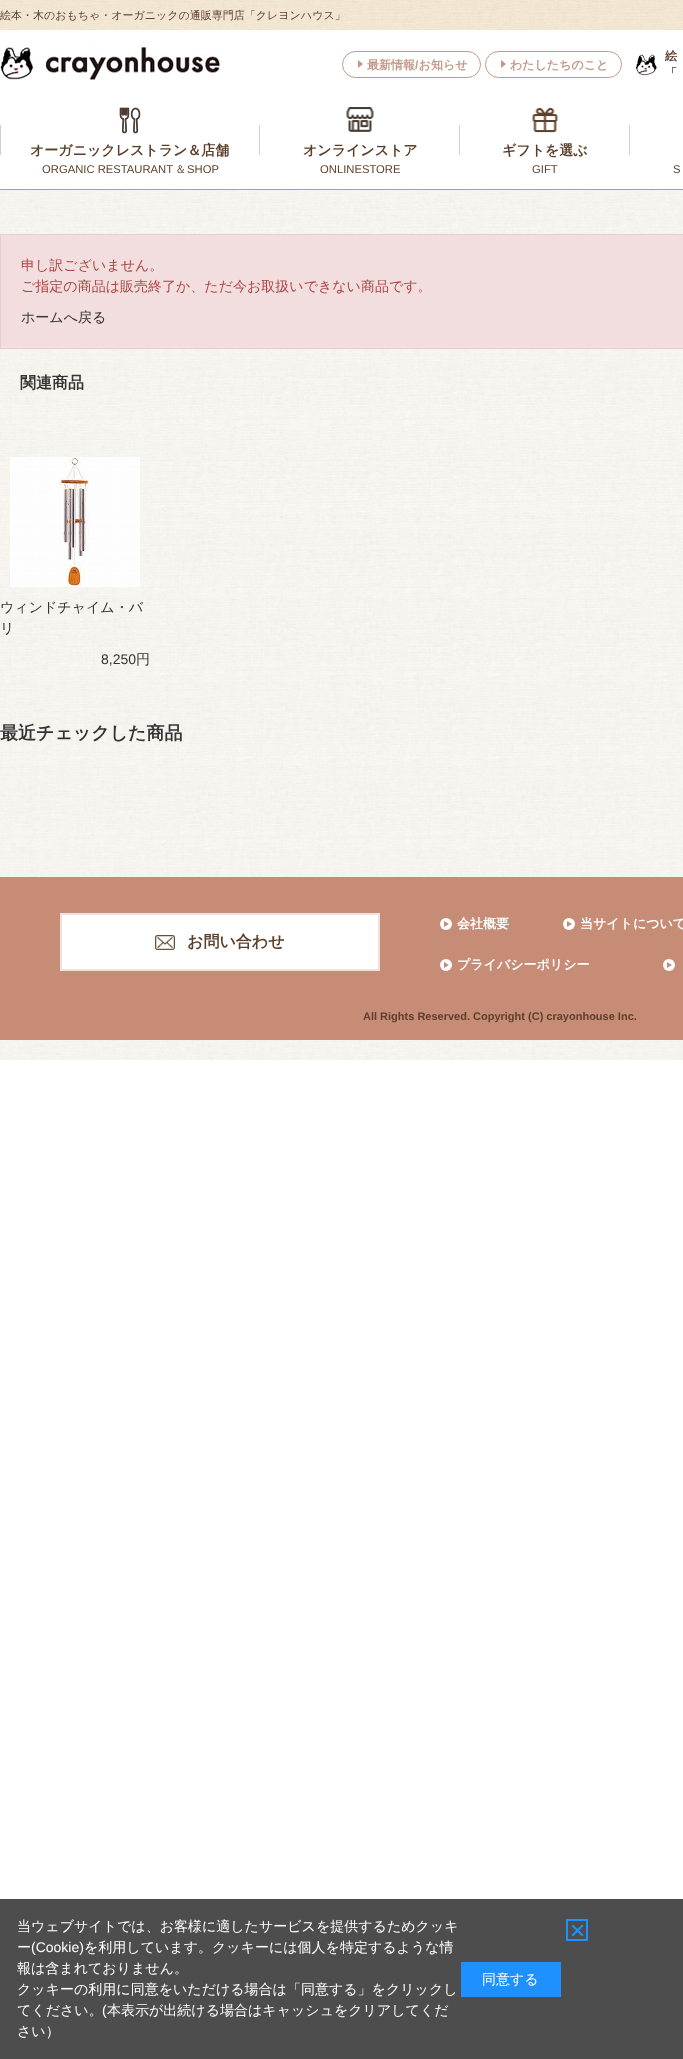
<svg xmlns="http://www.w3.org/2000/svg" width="683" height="2059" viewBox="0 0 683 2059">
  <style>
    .t1 { font: 500 11px WenQuanYi Zen Hei; fill: #5c3f2a; }
    .t2 { font: bold 12px WenQuanYi Zen Hei; fill: #c39786; }
    .t3 { font: bold 12px Liberation Sans; fill: #c39786; }
    .t4 { font: bold 12px WenQuanYi Zen Hei; fill: #5c3f2a; }
    .t5 { font: bold 14px WenQuanYi Zen Hei; fill: #5c3f2a; }
    .t6 { font: 11.25px Liberation Sans; fill: #5c3f2a; }
    .t7 { font: 500 11.25px WenQuanYi Zen Hei; fill: #5c3f2a; }
    .t8 { font: 500 14px WenQuanYi Zen Hei; fill: #a94442; }
    .t9 { font: 500 14px WenQuanYi Zen Hei; fill: #333; }
    .t10 { font: bold 16px WenQuanYi Zen Hei; fill: #333; }
    .t11 { font: 14px Liberation Sans; fill: #333; }
    .t12 { font: bold 18px WenQuanYi Zen Hei; fill: #333; }
    .t13 { font: bold 16px WenQuanYi Zen Hei; fill: #5c3f2a; }
    .t14 { font: bold 13px WenQuanYi Zen Hei; fill: #fff; }
    .t15 { font: bold 11px Liberation Sans; fill: #5c3f2a; }
    .t16 { font: 500 14px WenQuanYi Zen Hei; fill: #fff; }
    .t17 { font: 14px Liberation Sans; fill: #fff; }
  </style>
  <rect width="100%" height="100%" fill="#fff"/>
  <image x="0" y="190" width="683" height="870" href="images/1.png"/>
  <rect x="0" y="189" width="683" height="1" fill="#c39786"/>
  <image x="0" y="0" width="683" height="30" href="images/2.png"/>
  <text x="0" y="19" class="t1">絵本・木のおもちゃ・オーガニックの通販専門店「クレヨンハウス」</text>
  <image x="0" y="46" width="220" height="35" href="images/3.png"/>
  <rect x="342.5" y="51.5" width="138" height="26" rx="13" fill="none" stroke="#c39786"/>
  <path d="M358 68V60L363 64Z" fill="#c39786"/>
  <text x="367" y="69" class="t2">最新情報 お知らせ</text>
  <text x="415" y="69" class="t3">/</text>
  <rect x="485.5" y="51.5" width="136" height="26" rx="13" fill="none" stroke="#c39786"/>
  <path d="M501 68V60L506 64Z" fill="#c39786"/>
  <text x="510" y="69" class="t2">わたしたちのこと</text>
  <image x="635" y="54" width="22" height="22" href="images/4.png"/>
  <text x="665" y="60" class="t4">絵</text>
  <text x="665" y="77" class="t4">「</text>
  <image x="119" y="107" width="22" height="27" href="images/5.png"/>
  <rect x="0" y="125" width="1" height="30" fill="#d2d2d2"/>
  <text x="30" y="155" class="t5">オーガニックレストラン＆店舗</text>
  <rect x="259" y="125" width="1" height="30" fill="#d2d2d2"/>
  <text x="42" y="173" class="t6">ORGANIC RESTAURANT</text>
  <text x="175" y="173" class="t7">＆</text>
  <text x="187" y="173" class="t6">SHOP</text>
  <image x="346" y="107" width="28" height="25" href="images/6.png"/>
  <text x="303" y="155" class="t5">オンラインストア</text>
  <rect x="459" y="125" width="1" height="30" fill="#d2d2d2"/>
  <text x="320" y="173" class="t6">ONLINESTORE</text>
  <image x="532" y="107" width="26" height="26" href="images/7.png"/>
  <text x="502" y="155" class="t5">ギフトを選ぶ</text>
  <rect x="629" y="125" width="1" height="30" fill="#d2d2d2"/>
  <text x="532" y="173" class="t6">GIFT</text>
  <text x="673" y="173" class="t6">S</text>
  <rect x="0.5" y="234.5" width="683" height="114" fill="#f2dede" stroke="#ebccd1"/>
  <text x="21" y="270" class="t8">申し訳ございません。</text>
  <text x="21" y="291" class="t8">ご指定の商品は販売終了か、ただ今お取扱いできない商品です。</text>
  <text x="21" y="322" class="t9">ホームへ戻る</text>
  <text x="20" y="388" class="t10">関連商品</text>
  <image x="10" y="457" width="130" height="130" href="images/8.png"/>
  <text x="0" y="612" class="t9">ウィンドチャイム・バ</text>
  <text x="0" y="633" class="t9">リ</text>
  <text x="101" y="664" class="t11">8,250</text>
  <text x="136" y="664" class="t9">円</text>
  <text x="0" y="739" class="t12">最近チェックした商品</text>
  <rect x="0" y="877" width="683" height="163" fill="#c78c76"/>
  <rect x="61" y="914" width="318" height="56" fill="#fff" stroke="#f0e2dd" stroke-width="2"/>
  <image x="155" y="935" width="20" height="15" href="images/9.png"/>
  <text x="187" y="947" class="t13">お問い合わせ</text>
  <circle cx="446" cy="924" r="6" fill="#fff"/>
  <text x="457" y="928" class="t14">会社概要</text>
  <path d="M444 927V921L449 924Z" fill="#c78c76"/>
  <circle cx="569" cy="924" r="6" fill="#fff"/>
  <text x="580" y="928" class="t14">当サイトについて</text>
  <path d="M567 927V921L572 924Z" fill="#c78c76"/>
  <circle cx="446" cy="965" r="6" fill="#fff"/>
  <text x="457" y="969" class="t14">プライバシーポリシー</text>
  <path d="M444 968V962L449 965Z" fill="#c78c76"/>
  <circle cx="669" cy="965" r="6" fill="#fff"/>
  <path d="M667 968V962L672 965Z" fill="#c78c76"/>
  <text x="363" y="1020" class="t15">All Rights Reserved. Copyright (C) crayonhouse Inc.</text>
  <rect x="0" y="1899" width="683" height="160" fill="#4d4d4d"/>
  <text x="17" y="1931" class="t16">当ウェブサイトでは、お客様に適したサービスを提供するためクッキ</text>
  <text x="17" y="1952" class="t16">ー</text>
  <text x="31" y="1952" class="t17">(Cookie)</text>
  <text x="84" y="1952" class="t16">を利用しています。クッキーには個人を特定するような情</text>
  <text x="17" y="1973" class="t16">報は含まれておりません。</text>
  <text x="17" y="1994" class="t16">クッキーの利用に同意をいただける場合は「同意する」をクリックし</text>
  <text x="17" y="2015" class="t16">てください。</text>
  <text x="102" y="2015" class="t17">(</text>
  <text x="107" y="2015" class="t16">本表示が出続ける場合はキャッシュをクリアしてくだ</text>
  <text x="17" y="2036" class="t16">さい）</text>
  <rect x="567" y="1920" width="20" height="20" fill="none" stroke="#1e90ff" stroke-width="2"/>
  <path d="M571.5 1935L582 1924.5L583.5 1926L573 1936.5Z" fill="#1e90ff"/>
  <path d="M573 1924.5L583.5 1935L582 1936.5L571.5 1926Z" fill="#1e90ff"/>
  <rect x="461" y="1962" width="100" height="35" fill="#1e90ff"/>
  <text x="482" y="1984" class="t16">同意する</text>
</svg>
